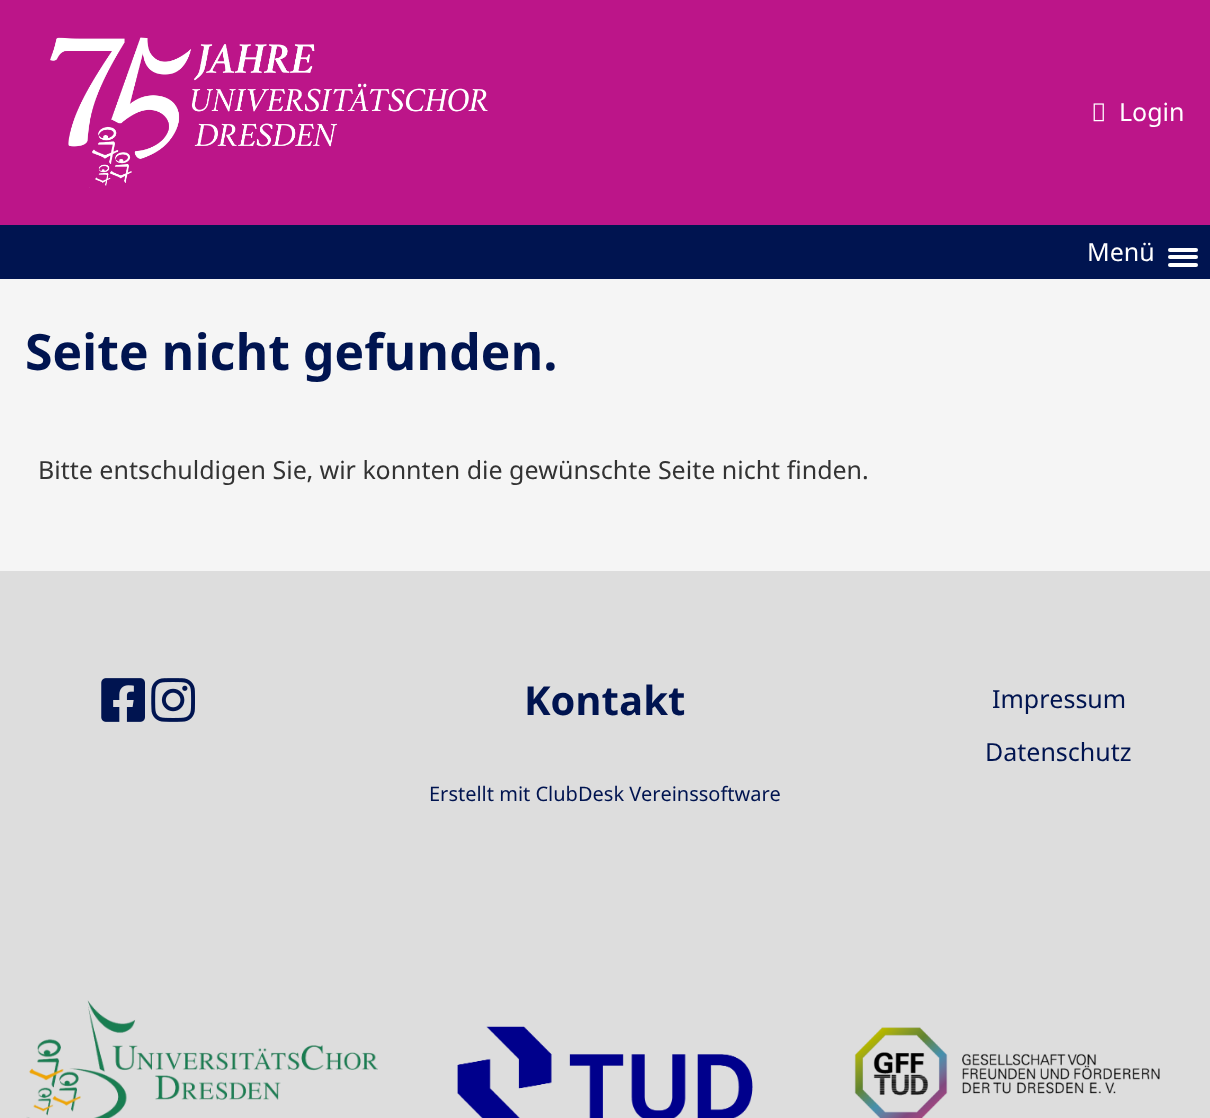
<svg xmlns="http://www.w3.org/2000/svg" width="1210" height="1118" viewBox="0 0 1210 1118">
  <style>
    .t1 { font: 25px Noto Sans; fill: #fff; }
    .t2 { font: bold 50px Noto Sans; fill: #001450; }
    .t3 { font: 25px Noto Sans; fill: #333; }
    .t4 { font: bold 40px Noto Sans; fill: #001450; }
    .t5 { font: 20px Noto Sans; fill: #001450; }
    .t6 { font: 25px Noto Sans; fill: #001450; }
  </style>
  <rect width="100%" height="100%" fill="#f5f5f5"/>
  <rect x="0" y="0" width="1210" height="225" fill="#bc1589"/>
  <image x="50" y="37" width="438" height="151" href="images/1.png"/>
  <image x="1093" y="103" width="11" height="19" href="images/2.png"/>
  <text x="1119" y="121" class="t1">Login</text>
  <rect x="0" y="225" width="1210" height="54" fill="#001450"/>
  <text x="1087" y="261" class="t1">Menü</text>
  <rect x="1168" y="248" width="30" height="4" rx="2" fill="#fff"/>
  <rect x="1168" y="255" width="30" height="4" rx="2" fill="#fff"/>
  <rect x="1168" y="263" width="30" height="4" rx="2" fill="#fff"/>
  <text x="25" y="370" class="t2">Seite nicht gefunden.</text>
  <text x="38" y="479" class="t3">Bitte entschuldigen Sie, wir konnten die gewünschte Seite nicht finden.</text>
  <rect x="0" y="571" width="1210" height="547" fill="#ddd"/>
  <image x="101" y="678" width="44" height="44" href="images/3.png"/>
  <image x="151" y="678" width="44" height="44" href="images/4.png"/>
  <text x="524" y="715" class="t4">Kontakt</text>
  <text x="429" y="801" class="t5">Erstellt mit ClubDesk Vereinssoftware</text>
  <text x="992" y="708" class="t6">Impressum</text>
  <text x="985" y="761" class="t6">Datenschutz</text>
  <image x="26" y="1000" width="352" height="118" href="images/5.png"/>
  <image x="457" y="1026" width="296" height="92" href="images/6.png"/>
  <image x="854" y="1027" width="306" height="91" href="images/7.png"/>
</svg>
